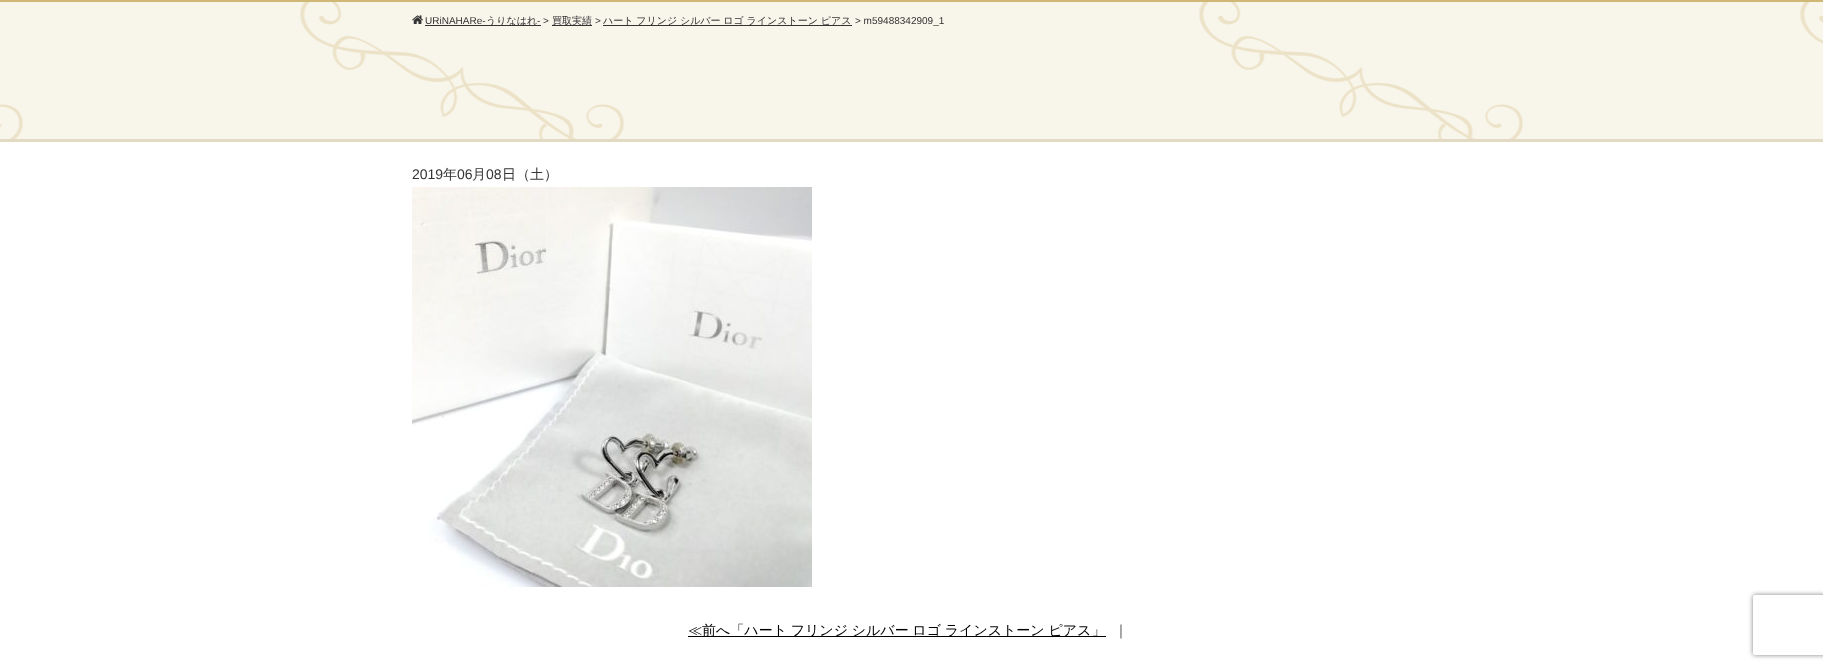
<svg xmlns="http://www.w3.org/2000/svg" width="1823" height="669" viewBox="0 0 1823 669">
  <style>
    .t1 { font: 10px Liberation Sans; fill: #333; }
    .t2 { font: 500 10px WenQuanYi Zen Hei; fill: #333; }
    .t3 { font: 14px Liberation Sans; fill: #333; }
    .t4 { font: 500 14px WenQuanYi Zen Hei; fill: #333; }
    .t5 { font: 500 14px WenQuanYi Zen Hei; fill: #000; }
  </style>
  <defs>
    <clipPath id="clip1"><path d="M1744 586H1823V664H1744ZM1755 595H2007C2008 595 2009 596 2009 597V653C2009 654 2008 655 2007 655H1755C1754 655 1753 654 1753 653V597C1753 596 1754 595 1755 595Z" clip-rule="evenodd"/></clipPath>
  </defs>
  <rect width="100%" height="100%" fill="#fff"/>
  <image x="0" y="0" width="1823" height="142" href="images/1.png"/>
  <image x="412" y="15" width="11" height="9" href="images/2.png"/>
  <text x="425" y="24" class="t1">URiNAHARe-</text>
  <rect x="425" y="25" width="116" height="1" fill="#333"/>
  <text x="486" y="24" class="t2">うりなはれ</text>
  <text x="537" y="24" class="t1">- &gt;</text>
  <rect x="552" y="25" width="40" height="1" fill="#333"/>
  <text x="552" y="24" class="t2">買取実績</text>
  <text x="595" y="24" class="t1">&gt;</text>
  <rect x="603" y="25" width="249" height="1" fill="#333"/>
  <text x="603" y="24" word-spacing="-0.25" class="t2">ハート フリンジ シルバー ロゴ ラインストーン ピアス</text>
  <text x="855" y="24" class="t1">&gt; m59488342909_1</text>
  <text x="412" y="179" class="t3">2019</text>
  <text x="443" y="179" class="t4">年</text>
  <text x="457" y="179" class="t3">06</text>
  <text x="472" y="179" class="t4">月</text>
  <text x="486" y="179" class="t3">08</text>
  <text x="502" y="179" class="t4">日（土）</text>
  <image x="412" y="187" width="400" height="400" href="images/3.png"/>
  <rect x="688" y="636" width="418" height="1" fill="#000"/>
  <text x="688" y="635" word-spacing="-0.5" class="t5">≪前へ「ハート フリンジ シルバー ロゴ ラインストーン ピアス」</text>
  <text x="1114" y="635" class="t4">｜</text>
  <g clip-path="url(#clip1)">
    <rect x="1753" y="595" width="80" height="60" rx="2" fill="#808080" filter="blur(2.5px)"/>
  </g>
</svg>
